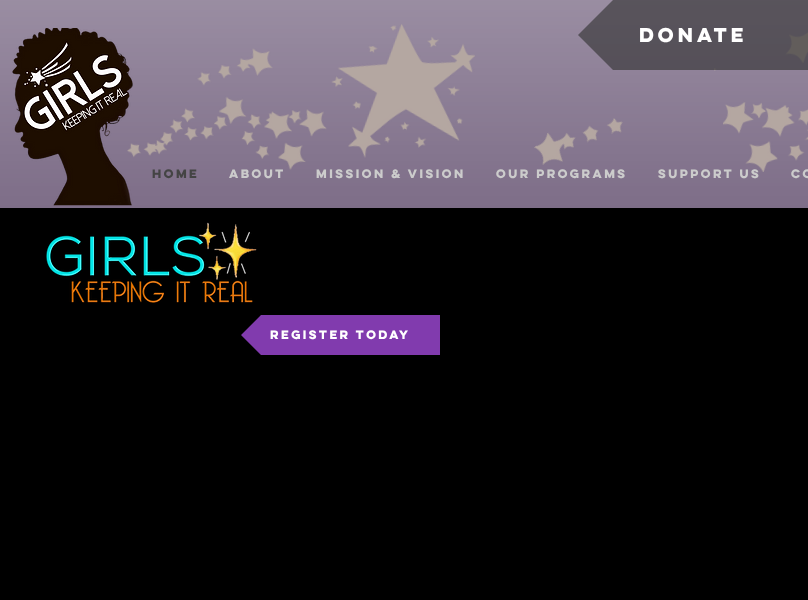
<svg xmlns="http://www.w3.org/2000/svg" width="808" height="600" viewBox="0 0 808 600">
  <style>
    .t1 { font: bold 11px 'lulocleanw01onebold'; fill: #ccc; }
    .t2 { font: bold 18px 'lulocleanw01onebold'; fill: #fff; }
    .t3 { font: bold 11px 'lulocleanw01onebold'; fill: #444; }
    .t4 { font: bold 11px 'lulocleanw01onebold'; fill: #fff; }
  </style>
  <defs>
    <clipPath id="clip1"><rect x="578" y="0" width="230" height="70"/></clipPath>
    <clipPath id="clip2"><rect x="241" y="315" width="199" height="40"/></clipPath>
  </defs>
  <rect width="100%" height="100%" fill="#000"/>
  <rect x="0" y="0" width="808" height="208" fill="#776682"/>
  <image x="0" y="0" width="808" height="208" href="images/1.png"/>
  <path d="M628 35H578L628-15Z" fill="#333333a1"/>
  <text x="658" y="178" class="t1">Support Us</text>
  <text x="791" y="178" class="t1">Co</text>
  <image x="714" y="32" width="94" height="140" href="images/5.png"/>
  <rect x="628" y="0" width="180" height="70" fill="#333333a1"/>
  <g clip-path="url(#clip1)">
    <path d="M578 35H628V85Z" fill="#333333a1"/>
  </g>
  <text x="639" y="42" class="t2">Donate</text>
  <image x="127" y="24" width="348" height="146" href="images/3.png"/>
  <image x="12" y="28" width="121" height="178" href="images/2.png"/>
  <image x="534" y="118" width="89" height="47" href="images/4.png"/>
  <text x="152" y="178" class="t3">Home</text>
  <text x="229" y="178" class="t1">About</text>
  <text x="316" y="178" class="t1">Mission &amp; Vision</text>
  <text x="496" y="178" class="t1">Our Programs</text>
  <image x="46" y="222" width="211" height="81" href="images/6.png"/>
  <g clip-path="url(#clip2)">
    <path d="M291 335H241L291 285ZM241 335H291V385Z" fill="#813bae"/>
  </g>
  <rect x="291" y="315" width="149" height="40" fill="#813bae"/>
  <text x="270" y="339" class="t4">Register Today</text>
</svg>
